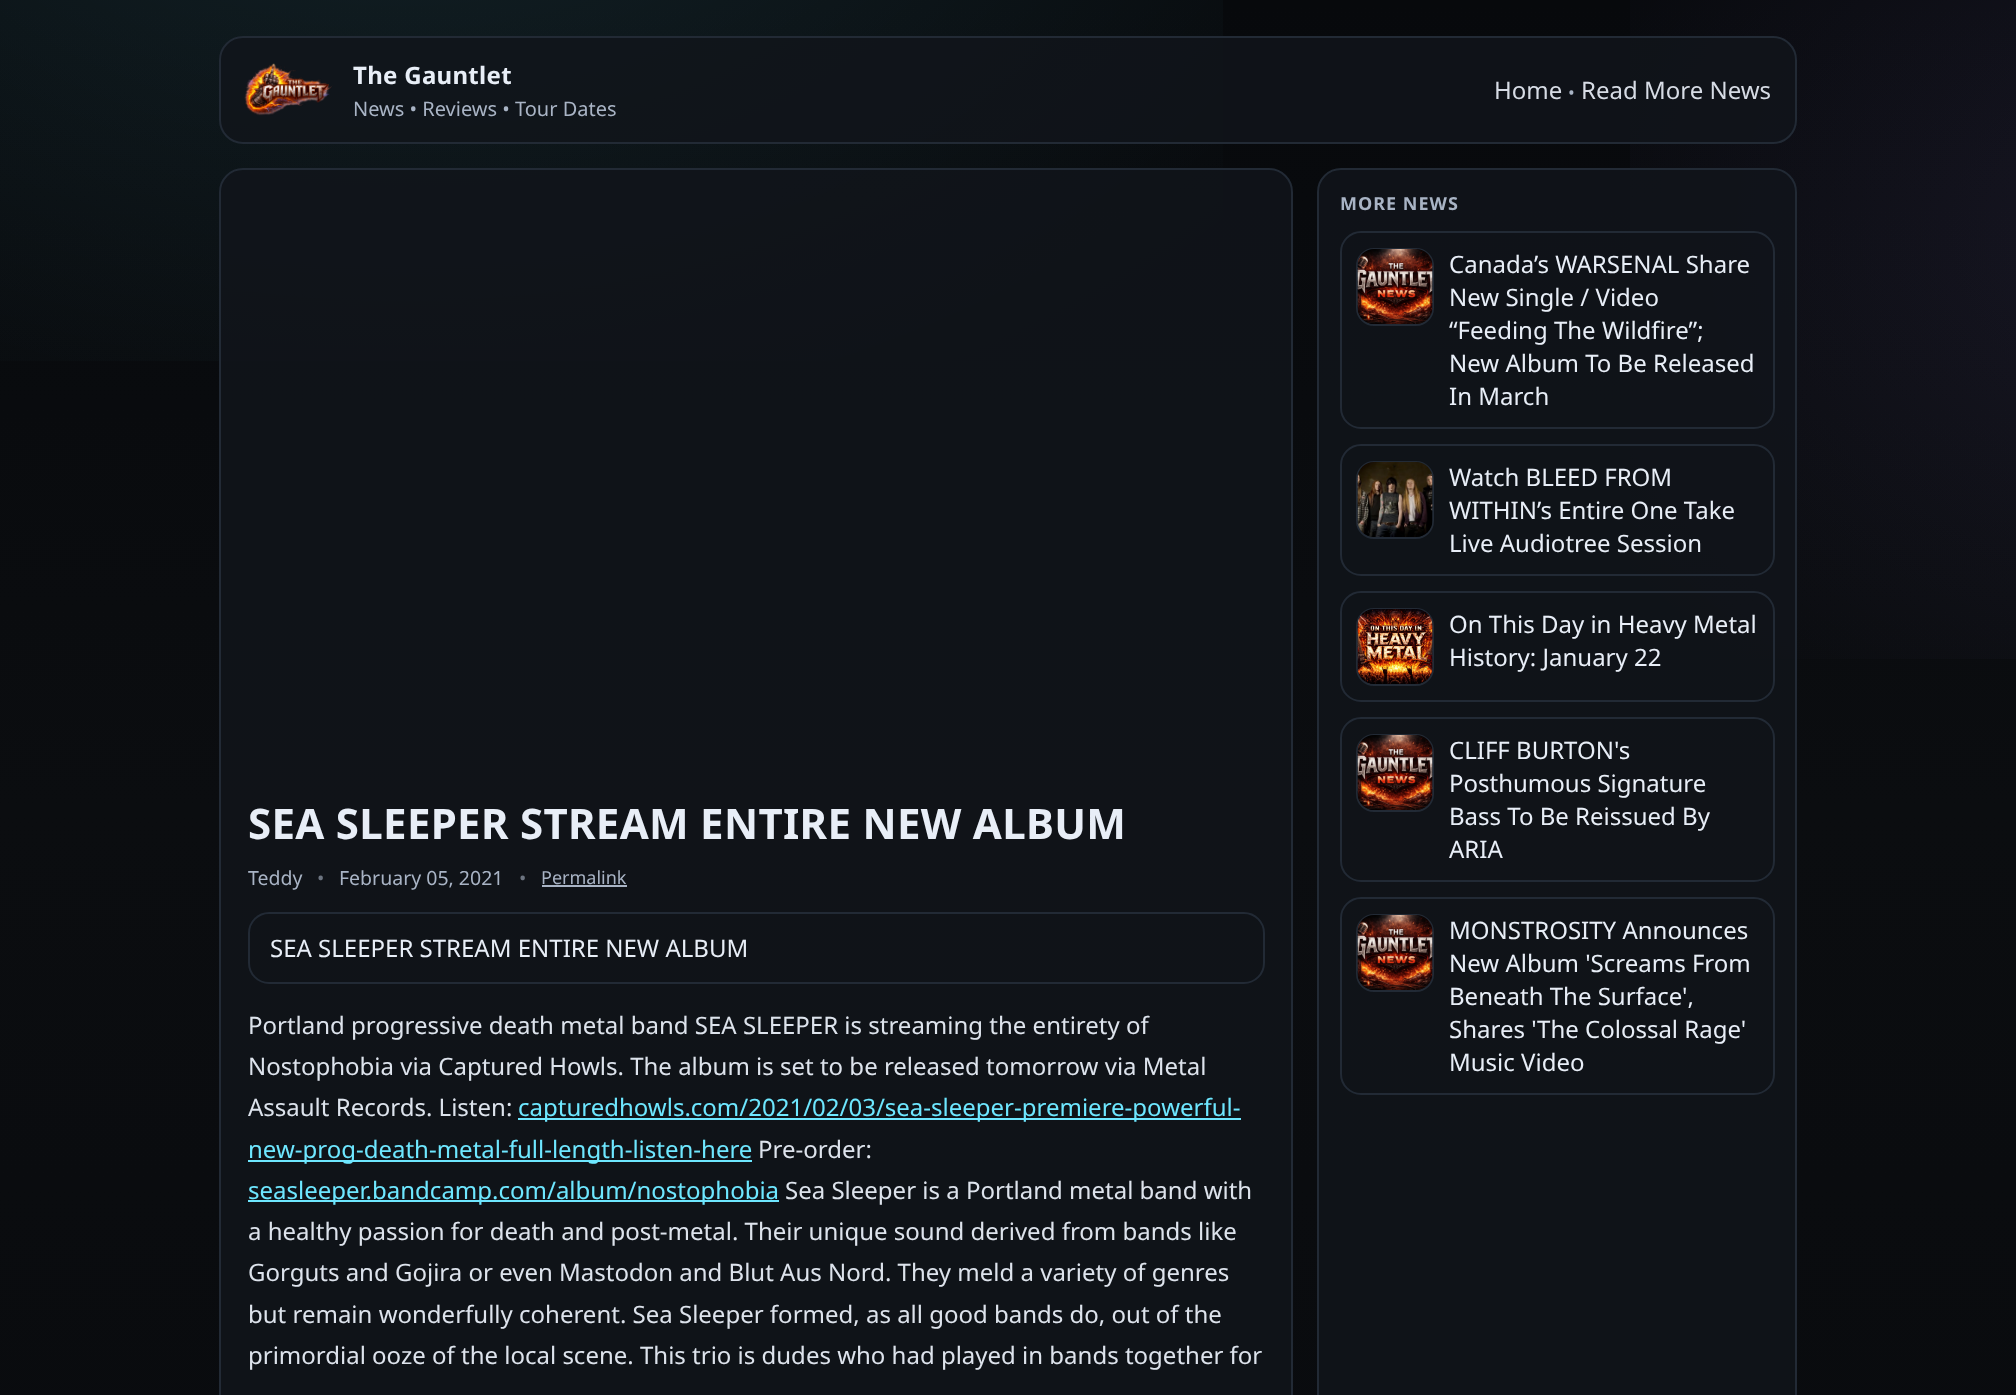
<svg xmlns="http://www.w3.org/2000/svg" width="2016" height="1395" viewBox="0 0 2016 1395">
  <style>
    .t1 { font: bold 24px Noto Sans; letter-spacing: 0.3px; fill: #e8eef7; }
    .t2 { font: 20px Noto Sans; fill: #a9b4c5; }
    .t3 { font: 24px Noto Sans; fill: #d7dce5; }
    .t4 { font: 18px Noto Sans; fill: #a9b4c5; }
    .t5 { font: bold 42px Noto Sans; letter-spacing: 0.3px; fill: #e8eef7; }
    .t6 { font: 19.5px Noto Sans; fill: #a9b4c5; }
    .t7 { font: 19.5px Noto Sans; fill: #6c7480; }
    .t8 { font: 24px Noto Sans; fill: #e8eef7; }
    .t9 { font: 24px Noto Sans; fill: #dde3ec; }
    .t10 { font: 24px Noto Sans; fill: #6ee7ff; }
    .t11 { font: bold 18px Noto Sans; letter-spacing: 1px; fill: #a9b4c5; }
  </style>
  <defs>
    <linearGradient id="g1" gradientUnits="userSpaceOnUse" x1="1008" y1="0" x2="1008" y2="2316"><stop offset="0" stop-color="#07090c"/><stop offset="0.35" stop-color="#0b0d10"/><stop offset="1" stop-color="#07090c"/></linearGradient>
    <radialGradient id="g2" gradientUnits="userSpaceOnUse" cx="0" cy="0" r="1" gradientTransform="matrix(1350 0 0 1050 2218 232)"><stop offset="0" stop-color="#a78bfa" stop-opacity="0.1"/><stop offset="0.55" stop-color="#a78bfa" stop-opacity="0"/></radialGradient>
    <radialGradient id="g3" gradientUnits="userSpaceOnUse" cx="0" cy="0" r="1" gradientTransform="matrix(1800 0 0 1200 403 -232)"><stop offset="0" stop-color="#6ee7ff" stop-opacity="0.12"/><stop offset="0.6" stop-color="#6ee7ff" stop-opacity="0"/></radialGradient>
  </defs>
  <rect width="100%" height="100%" fill="#fff"/>
  <rect x="0" y="0" width="2016" height="1395" fill="url(#g1)"/>
  <rect x="1630" y="0" width="386" height="659" fill="url(#g2)"/>
  <rect x="0" y="0" width="1223" height="361" fill="url(#g3)"/>
  <rect x="220" y="37" width="1576" height="106" rx="23" fill="#11151bd1" stroke="#222a35" stroke-width="2"/>
  <image x="244" y="63" width="89" height="53" href="images/1.png"/>
  <text x="353" y="84" class="t1">The Gauntlet</text>
  <text x="353" y="116" class="t2">News • Reviews • Tour Dates</text>
  <text x="1494" y="99" class="t3">Home</text>
  <text x="1568" y="99" class="t4">•</text>
  <text x="1581" y="99" class="t3">Read More News</text>
  <rect x="220" y="169" width="1072" height="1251" rx="23" fill="#11151bd1" stroke="#222a35" stroke-width="2"/>
  <text x="248" y="839" class="t5">SEA SLEEPER STREAM ENTIRE NEW ALBUM</text>
  <text x="248" y="885" class="t6">Teddy</text>
  <text x="317" y="885" class="t7">•</text>
  <text x="339" y="885" class="t6">February 05, 2021</text>
  <text x="519" y="885" class="t7">•</text>
  <text x="541" y="884" class="t4">Permalink</text>
  <rect x="542" y="885" width="85" height="2" fill="#a9b4c5"/>
  <rect x="249" y="913" width="1015" height="70" rx="20" fill="none" stroke="#222a35" stroke-width="2"/>
  <text x="270" y="957" class="t8">SEA SLEEPER STREAM ENTIRE NEW ALBUM</text>
  <text x="248" y="1034" class="t9">Portland progressive death metal band SEA SLEEPER is streaming the entirety of</text>
  <text x="248" y="1075" class="t9">Nostophobia via Captured Howls. The album is set to be released tomorrow via Metal</text>
  <text x="248" y="1116" class="t9">Assault Records. Listen:</text>
  <rect x="518" y="1118" width="723" height="2" fill="#6ee7ff"/>
  <text x="518" y="1116" class="t10">capturedhowls.com/2021/02/03/sea-sleeper-premiere-powerful-</text>
  <rect x="248" y="1160" width="504" height="2" fill="#6ee7ff"/>
  <text x="248" y="1158" class="t10">new-prog-death-metal-full-length-listen-here</text>
  <text x="758" y="1158" class="t9">Pre-order:</text>
  <rect x="248" y="1200" width="531" height="2" fill="#6ee7ff"/>
  <text x="248" y="1199" class="t10">seasleeper.bandcamp.com/album/nostophobia</text>
  <text x="785" y="1199" class="t9">Sea Sleeper is a Portland metal band with</text>
  <text x="248" y="1240" class="t9">a healthy passion for death and post-metal. Their unique sound derived from bands like</text>
  <text x="248" y="1281" class="t9">Gorguts and Gojira or even Mastodon and Blut Aus Nord. They meld a variety of genres</text>
  <text x="248" y="1323" class="t9">but remain wonderfully coherent. Sea Sleeper formed, as all good bands do, out of the</text>
  <text x="248" y="1364" class="t9">primordial ooze of the local scene. This trio is dudes who had played in bands together for</text>
  <rect x="1318" y="169" width="478" height="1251" rx="23" fill="#11151bd1" stroke="#222a35" stroke-width="2"/>
  <text x="1340" y="210" class="t11">MORE NEWS</text>
  <rect x="1341" y="232" width="433" height="196" rx="20" fill="none" stroke="#222a35" stroke-width="2"/>
  <rect x="1357" y="249" width="76" height="76" rx="17" fill="none" stroke="#222a35" stroke-width="2"/>
  <image x="1357" y="249" width="76" height="75" href="images/2.png"/>
  <text x="1449" y="273" class="t8">Canada’s WARSENAL Share</text>
  <text x="1449" y="306" class="t8">New Single / Video</text>
  <text x="1449" y="339" class="t8">“Feeding The Wildfire”;</text>
  <text x="1449" y="372" class="t8">New Album To Be Released</text>
  <text x="1449" y="405" class="t8">In March</text>
  <rect x="1341" y="445" width="433" height="130" rx="20" fill="none" stroke="#222a35" stroke-width="2"/>
  <rect x="1357" y="462" width="76" height="76" rx="17" fill="none" stroke="#222a35" stroke-width="2"/>
  <image x="1357" y="462" width="76" height="75" href="images/3.png"/>
  <text x="1449" y="486" class="t8">Watch BLEED FROM</text>
  <text x="1449" y="519" class="t8">WITHIN’s Entire One Take</text>
  <text x="1449" y="552" class="t8">Live Audiotree Session</text>
  <rect x="1341" y="592" width="433" height="109" rx="20" fill="none" stroke="#222a35" stroke-width="2"/>
  <rect x="1357" y="609" width="76" height="76" rx="17" fill="none" stroke="#222a35" stroke-width="2"/>
  <image x="1357" y="609" width="76" height="75" href="images/4.png"/>
  <text x="1449" y="633" class="t8">On This Day in Heavy Metal</text>
  <text x="1449" y="666" class="t8">History: January 22</text>
  <rect x="1341" y="718" width="433" height="163" rx="20" fill="none" stroke="#222a35" stroke-width="2"/>
  <rect x="1357" y="735" width="76" height="76" rx="17" fill="none" stroke="#222a35" stroke-width="2"/>
  <image x="1357" y="735" width="76" height="75" href="images/5.png"/>
  <text x="1449" y="759" class="t8">CLIFF BURTON's</text>
  <text x="1449" y="792" class="t8">Posthumous Signature</text>
  <text x="1449" y="825" class="t8">Bass To Be Reissued By</text>
  <text x="1449" y="858" class="t8">ARIA</text>
  <rect x="1341" y="898" width="433" height="196" rx="20" fill="none" stroke="#222a35" stroke-width="2"/>
  <rect x="1357" y="915" width="76" height="76" rx="17" fill="none" stroke="#222a35" stroke-width="2"/>
  <image x="1357" y="915" width="76" height="75" href="images/5.png"/>
  <text x="1449" y="939" class="t8">MONSTROSITY Announces</text>
  <text x="1449" y="972" class="t8">New Album 'Screams From</text>
  <text x="1449" y="1005" class="t8">Beneath The Surface',</text>
  <text x="1449" y="1038" class="t8">Shares 'The Colossal Rage'</text>
  <text x="1449" y="1071" class="t8">Music Video</text>
</svg>
